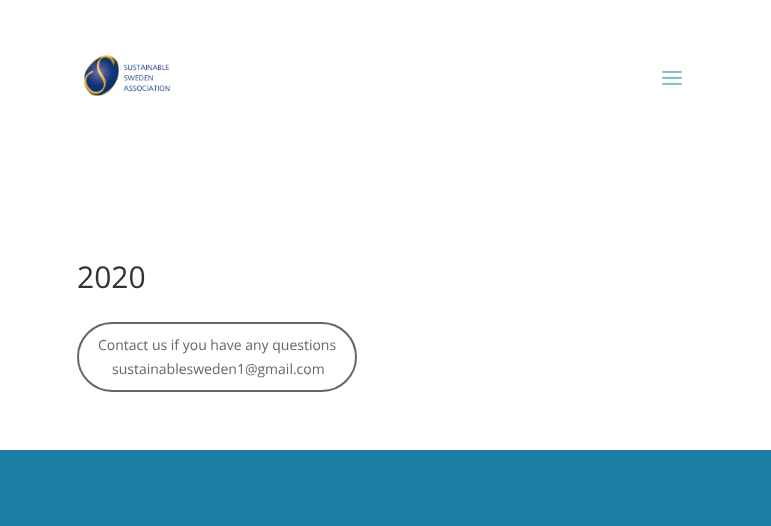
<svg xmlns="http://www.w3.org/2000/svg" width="771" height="526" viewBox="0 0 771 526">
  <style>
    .t1 { font: 30px Open Sans; fill: #333; }
    .t2 { font: 14px Open Sans; fill: #666; }
  </style>
  <rect width="100%" height="100%" fill="#fff"/>
  <image x="83" y="55" width="87" height="41" href="images/1.png"/>
  <image x="662" y="70" width="20" height="15" href="images/2.png"/>
  <text x="77" y="288" class="t1">2020</text>
  <rect x="78" y="323" width="278" height="68" rx="34" fill="none" stroke="#666" stroke-width="2"/>
  <text x="98" y="350" class="t2">Contact us if you have any questions</text>
  <text x="112" y="374" class="t2">sustainablesweden1@gmail.com</text>
  <rect x="0" y="450" width="771" height="76" fill="#1e7fa5"/>
</svg>
